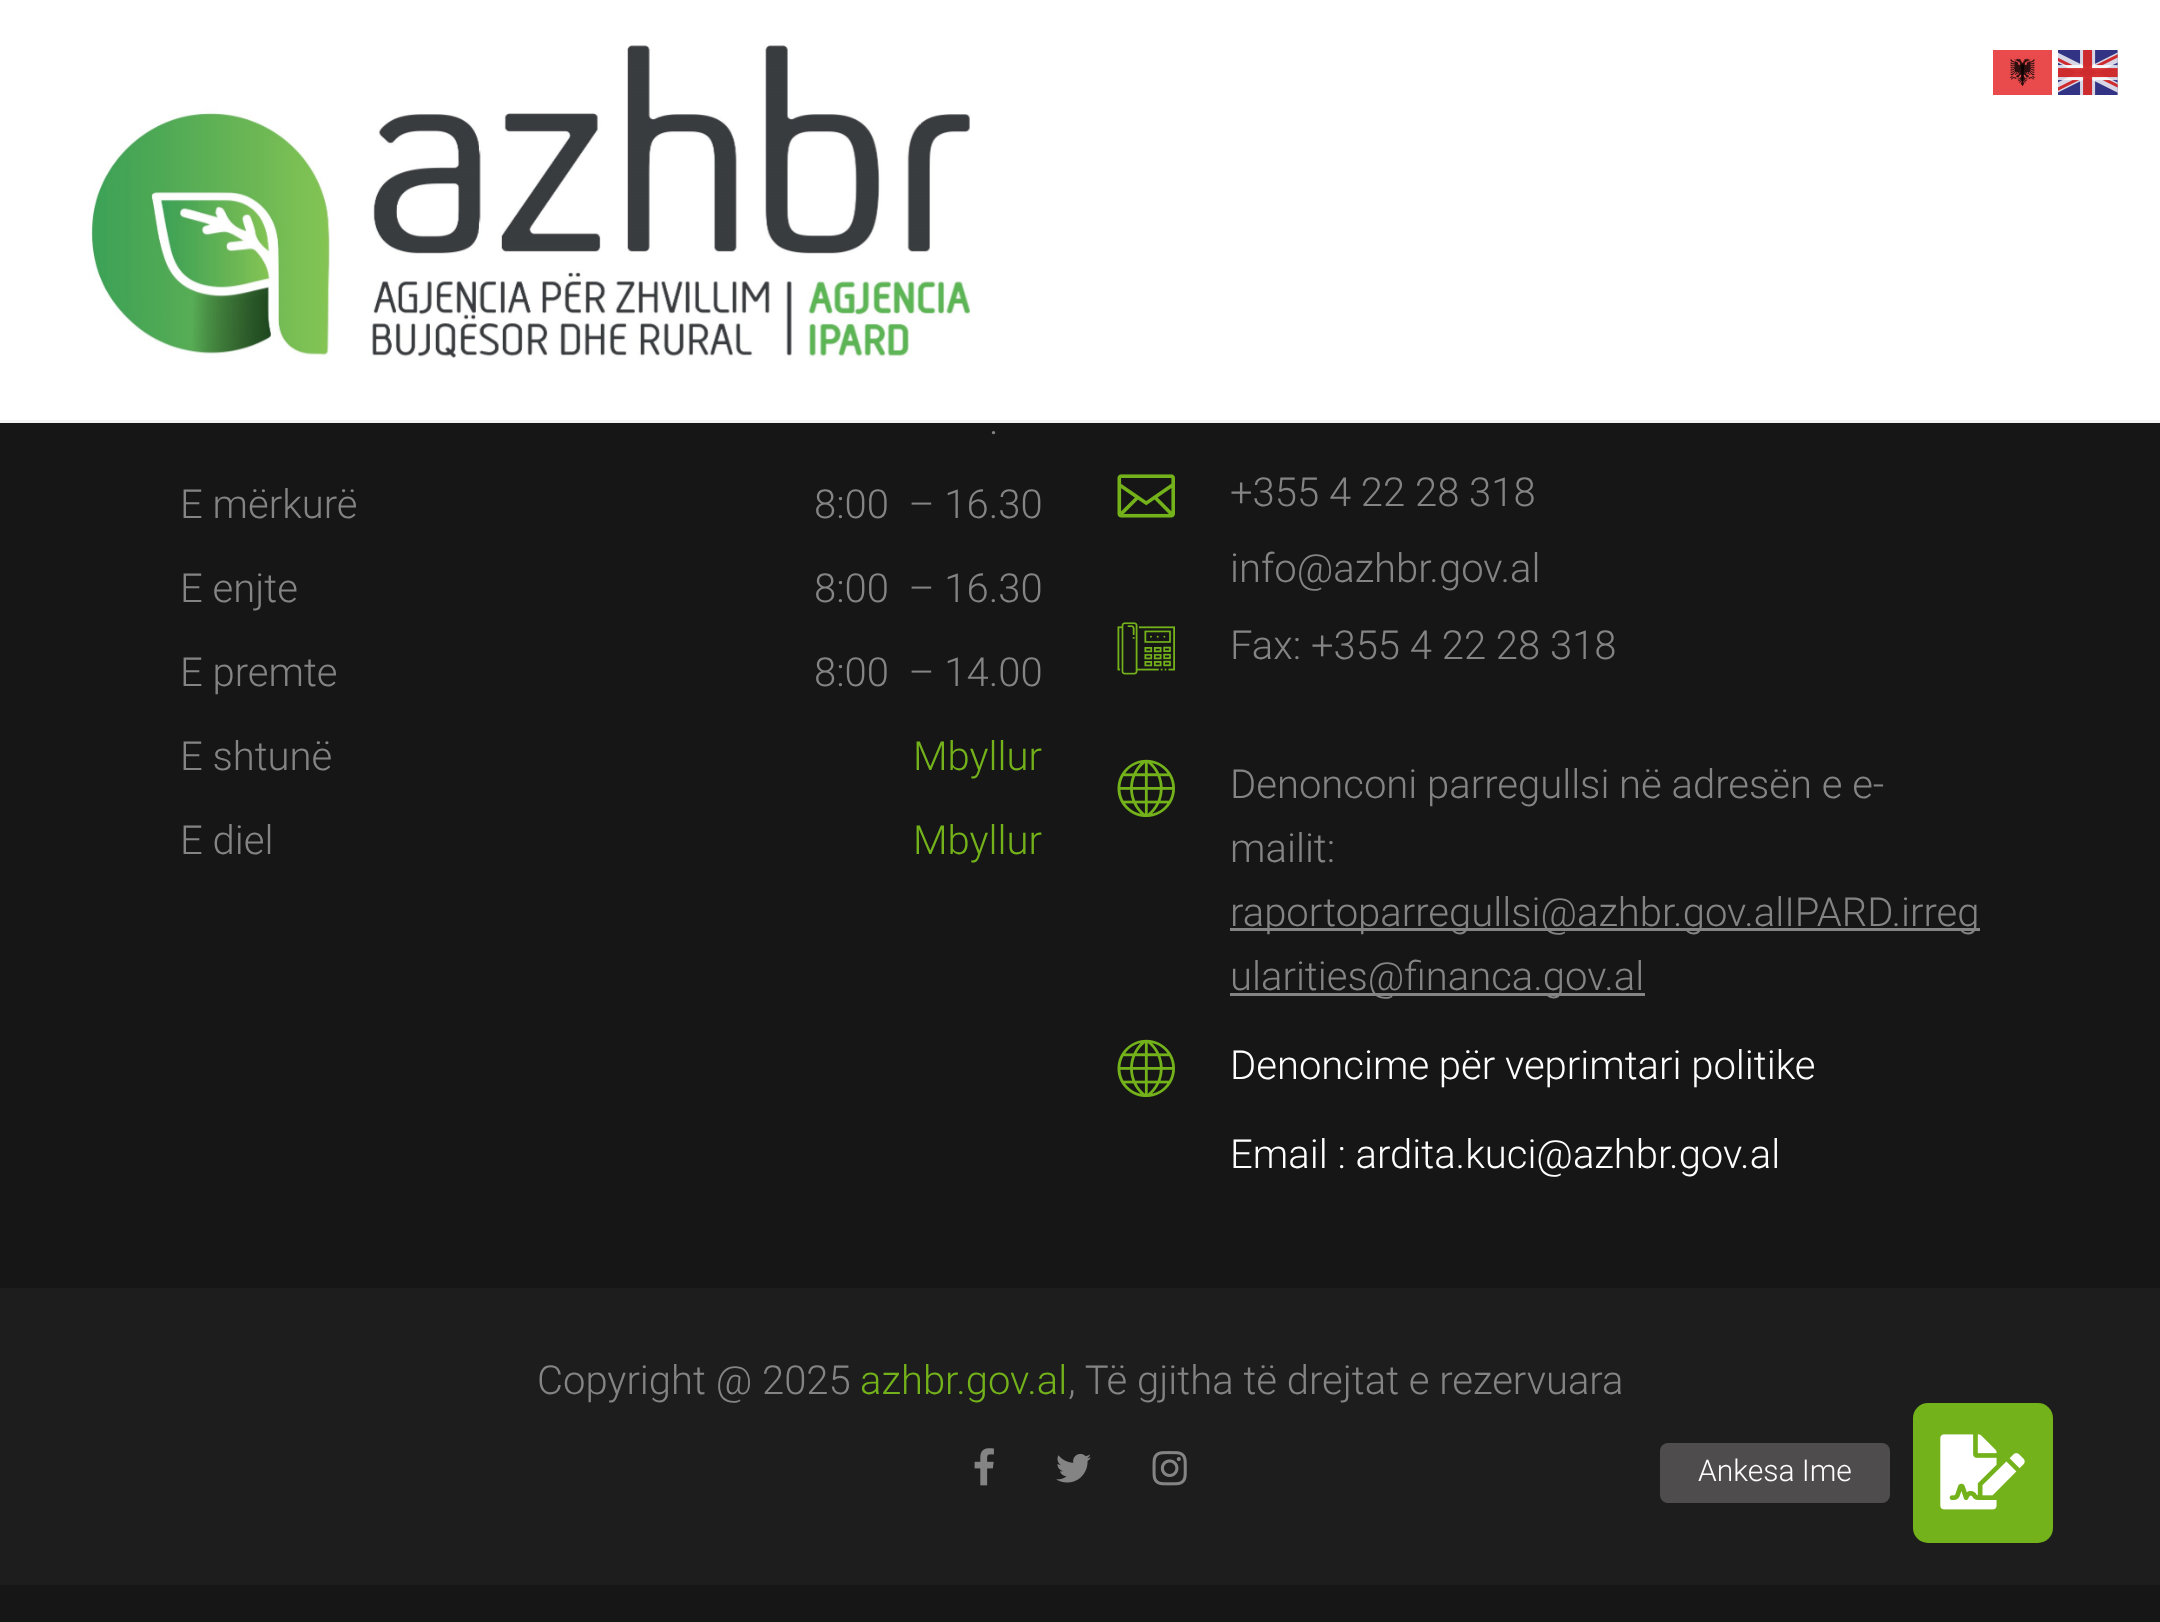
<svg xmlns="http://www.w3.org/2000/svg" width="2160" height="1622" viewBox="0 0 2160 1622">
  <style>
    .t1 { font: 300 40px Roboto; fill: #848484; }
    .t2 { font: 300 40px Roboto; fill: #73b21a; }
    .t3 { font: 300 40px Roboto; fill: #fff; }
    .t4 { font: 300 30px Roboto; fill: #fff; }
  </style>
  <rect width="100%" height="100%" fill="#161616"/>
  <rect x="0" y="0" width="2160" height="420" fill="#fff"/>
  <rect x="0" y="420" width="2160" height="3" fill="#f2f2f2"/>
  <image x="88" y="45" width="883" height="313" href="images/1.png"/>
  <image x="1993" y="50" width="59" height="45" href="images/2.png"/>
  <image x="2058" y="50" width="60" height="45" href="images/3.png"/>
  <text x="989" y="434" class="t1">.</text>
  <text x="180" y="518" class="t1">E mërkurë</text>
  <text x="814" y="518" class="t1" xml:space="preserve">8:00  – 16.30</text>
  <text x="180" y="602" class="t1">E enjte</text>
  <text x="814" y="602" class="t1" xml:space="preserve">8:00  – 16.30</text>
  <text x="180" y="686" class="t1">E premte</text>
  <text x="814" y="686" class="t1" xml:space="preserve">8:00  – 14.00</text>
  <text x="180" y="770" class="t1">E shtunë</text>
  <text x="913" y="770" class="t2">Mbyllur</text>
  <text x="180" y="854" class="t1">E diel</text>
  <text x="913" y="854" class="t2">Mbyllur</text>
  <image x="1117" y="474" width="58" height="44" href="images/4.png"/>
  <text x="1230" y="506" class="t1">+355 4 22 28 318</text>
  <text x="1230" y="582" class="t1">info@azhbr.gov.al</text>
  <image x="1117" y="622" width="58" height="53" href="images/5.png"/>
  <text x="1230" y="659" class="t1">Fax: +355 4 22 28 318</text>
  <image x="1117" y="759" width="58" height="59" href="images/6.png"/>
  <text x="1230" y="798" class="t1">Denonconi parregullsi në adresën e e-</text>
  <text x="1230" y="862" class="t1">mailit:</text>
  <rect x="1230" y="928" width="750" height="3" fill="#848484"/>
  <text x="1230" y="926" class="t1">raportoparregullsi@azhbr.gov.alIPARD.irreg</text>
  <rect x="1230" y="993" width="415" height="3" fill="#848484"/>
  <text x="1230" y="990" class="t1">ularities@financa.gov.al</text>
  <image x="1117" y="1039" width="58" height="59" href="images/6.png"/>
  <text x="1230" y="1079" class="t3">Denoncime për veprimtari politike</text>
  <text x="1230" y="1168" class="t3">Email : ardita.kuci@azhbr.gov.al</text>
  <rect x="0" y="1288" width="2160" height="297" fill="#1d1d1d"/>
  <text x="537" y="1394" class="t1">Copyright @ 2025</text>
  <text x="860" y="1394" class="t2">azhbr.gov.al</text>
  <text x="1068" y="1394" class="t1">, Të gjitha të drejtat e rezervuara</text>
  <image x="974" y="1448" width="20" height="38" href="images/7.png"/>
  <image x="1056" y="1453" width="35" height="30" href="images/8.png"/>
  <image x="1152" y="1451" width="35" height="35" href="images/9.png"/>
  <rect x="1913" y="1403" width="140" height="140" rx="15" fill="#73b21a"/>
  <rect x="1660" y="1443" width="230" height="60" rx="8" fill="#4e4c4c"/>
  <text x="1698" y="1481" class="t4">Ankesa Ime</text>
  <image x="1940" y="1434" width="85" height="76" href="images/10.png"/>
</svg>
